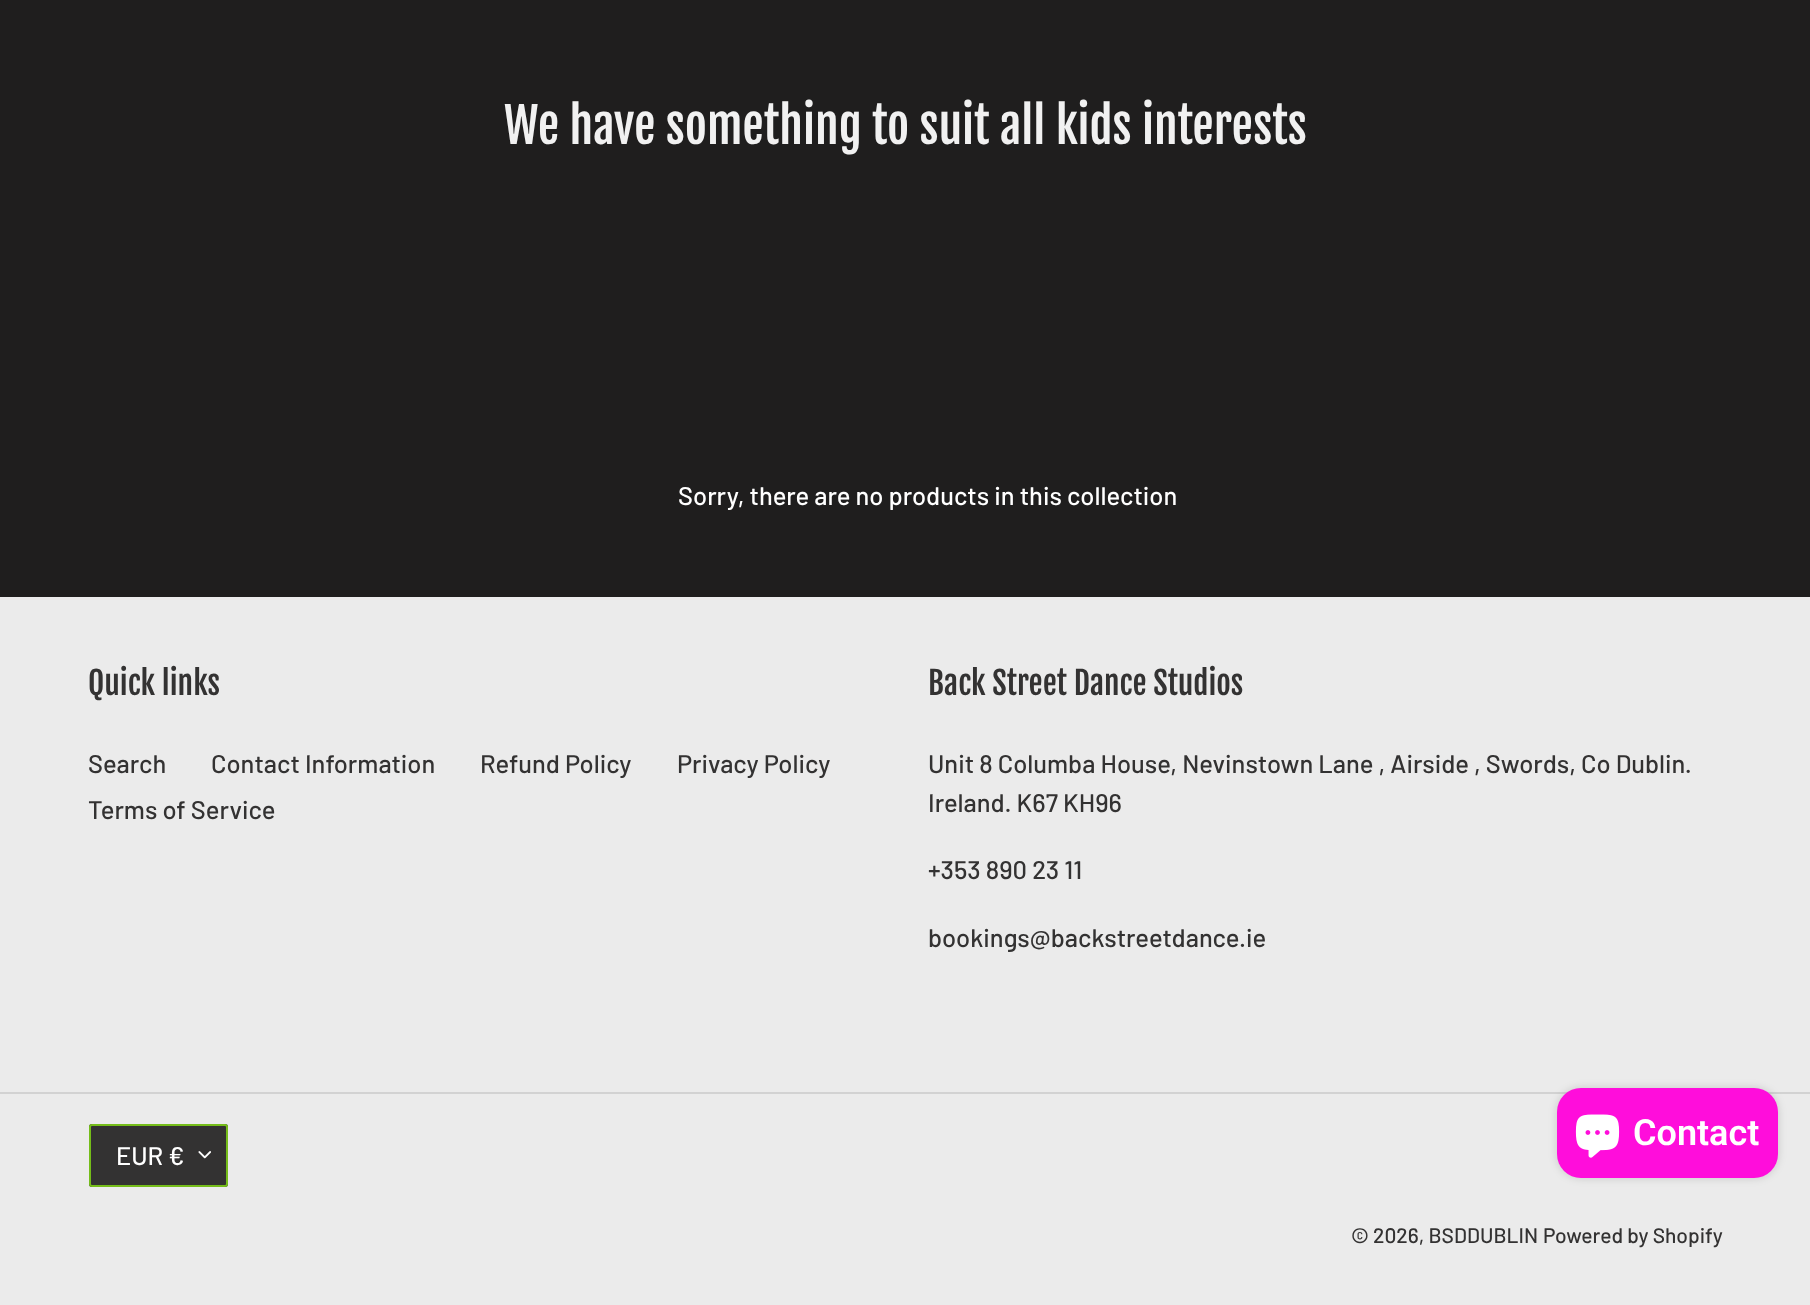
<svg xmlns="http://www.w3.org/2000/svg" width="1810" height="1305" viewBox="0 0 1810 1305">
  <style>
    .t1 { font: 48px Fjalla One; fill: #f1f1f1; }
    .t2 { font: 500 25.5px Barlow; fill: #fff; }
    .t3 { font: 31.5px Fjalla One; fill: #333232; }
    .t4 { font: 500 25.5px Barlow; fill: #333232; }
    .t5 { font: 500 21px Barlow; fill: #333232; }
    .t6 { font: 600 36px Roboto; fill: #fff; }
  </style>
  <rect width="100%" height="100%" fill="#1f1e1e"/>
  <text x="504" y="144" class="t1">We have something to suit all kids interests</text>
  <text x="678" y="505" class="t2">Sorry, there are no products in this collection</text>
  <rect x="0" y="597" width="1810" height="708" fill="#ebebeb"/>
  <text x="88" y="695" class="t3">Quick links</text>
  <text x="88" y="773" class="t4">Search</text>
  <text x="211" y="773" class="t4">Contact Information</text>
  <text x="480" y="773" class="t4">Refund Policy</text>
  <text x="677" y="773" class="t4">Privacy Policy</text>
  <text x="88" y="819" class="t4">Terms of Service</text>
  <text x="928" y="695" class="t3">Back Street Dance Studios</text>
  <text x="928" y="773" class="t4">Unit 8 Columba House, Nevinstown Lane , Airside , Swords, Co Dublin.</text>
  <text x="928" y="812" class="t4">Ireland. K67 KH96</text>
  <text x="928" y="879" class="t4">+353 890 23 11</text>
  <text x="928" y="947" class="t4">bookings@backstreetdance.ie</text>
  <rect x="0" y="1092" width="1810" height="2" fill="#d2d2d2"/>
  <rect x="89" y="1124" width="139" height="63" rx="3" fill="#333232"/>
  <image x="198" y="1151" width="13" height="8" href="images/1.png"/>
  <rect x="90" y="1125" width="137" height="61" rx="2" fill="none" stroke="#75bd19" stroke-width="2"/>
  <text x="116" y="1165" class="t2">EUR €</text>
  <text x="1351" y="1243" class="t5">© 2026, BSDDUBLIN</text>
  <text x="1543" y="1243" class="t5">Powered by Shopify</text>
  <rect x="1557" y="1088" width="221" height="90" rx="24" fill="#00000026" filter="blur(4px)"/>
  <rect x="1557" y="1088" width="221" height="90" rx="24" fill="#ff0ddb"/>
  <image x="1575" y="1114" width="45" height="44" href="images/2.png"/>
  <text x="1633" y="1145" class="t6">Contact</text>
</svg>
